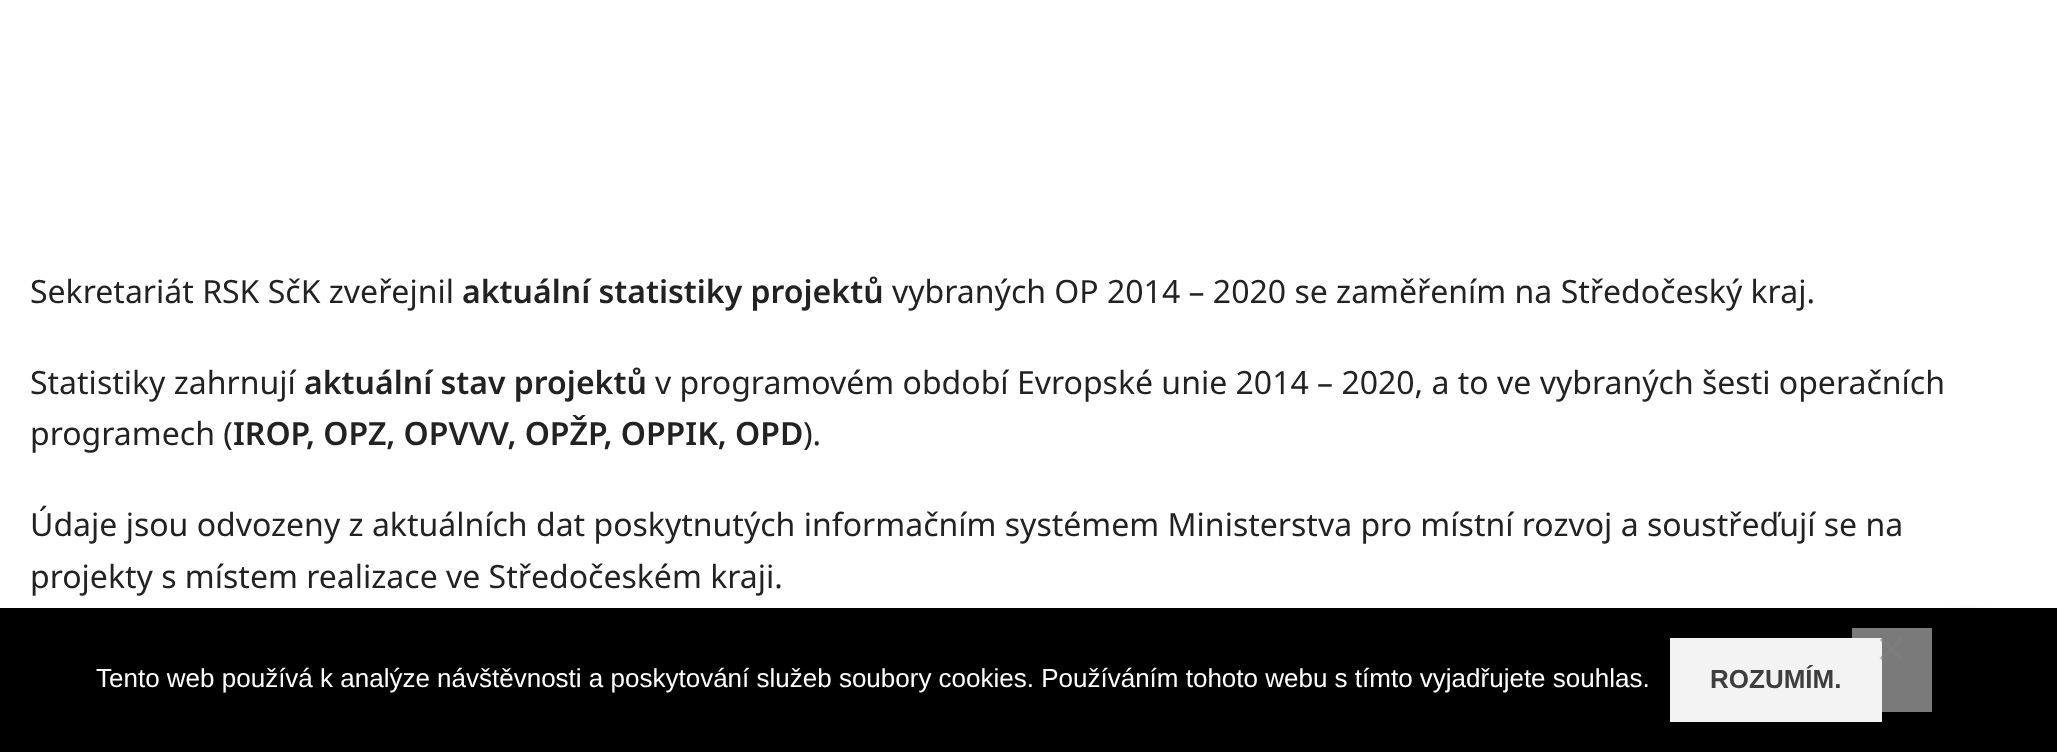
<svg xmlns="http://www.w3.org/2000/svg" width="2057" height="752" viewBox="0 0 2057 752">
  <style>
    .t1 { font: 32px Noto Sans; fill: #222; }
    .t2 { font: 600 32px Noto Sans; fill: #222; }
    .t3 { font: 26px Liberation Sans; fill: #fff; }
    .t4 { font: bold 26px Liberation Sans; fill: #3e3e3e; }
  </style>
  <rect width="100%" height="100%" fill="#fff"/>
  <text x="30" y="303" class="t1">Sekretariát RSK SčK zveřejnil</text>
  <text x="462" y="303" class="t2">aktuální statistiky projektů</text>
  <text x="892" y="303" class="t1">vybraných OP 2014 – 2020 se zaměřením na Středočeský kraj.</text>
  <text x="30" y="394" class="t1">Statistiky zahrnují</text>
  <text x="304" y="394" class="t2">aktuální stav projektů</text>
  <text x="655" y="394" class="t1">v programovém období Evropské unie 2014 – 2020, a to ve vybraných šesti operačních</text>
  <text x="30" y="445" class="t1">programech (</text>
  <text x="233" y="445" class="t2">IROP, OPZ, OPVVV, OPŽP, OPPIK, OPD</text>
  <text x="803" y="445" class="t1">).</text>
  <text x="30" y="536" class="t1">Údaje jsou odvozeny z aktuálních dat poskytnutých informačním systémem Ministerstva pro místní rozvoj a soustřeďují se na</text>
  <text x="30" y="588" class="t1">projekty s místem realizace ve Středočeském kraji.</text>
  <rect x="1918" y="612" width="100" height="100" rx="50" fill="#0000002b" filter="blur(5px)"/>
  <rect x="0" y="608" width="2057" height="144" fill="#000"/>
  <text x="96" y="687" class="t3">Tento web používá k analýze návštěvnosti a poskytování služeb soubory cookies. Používáním tohoto webu s tímto vyjadřujete souhlas.</text>
  <rect x="1670" y="638" width="212" height="84" fill="#f3f3f3"/>
  <text x="1710" y="688" class="t4">ROZUMÍM.</text>
  <rect x="1852" y="628" width="80" height="84" fill="#f3f3f380"/>
  <path d="M1900.5 637L1903.5 640L1882.5 661L1879.5 658Z" fill="#80808080"/>
  <path d="M1879.5 640L1882.5 637L1903.5 658L1900.5 661Z" fill="#80808080"/>
</svg>
